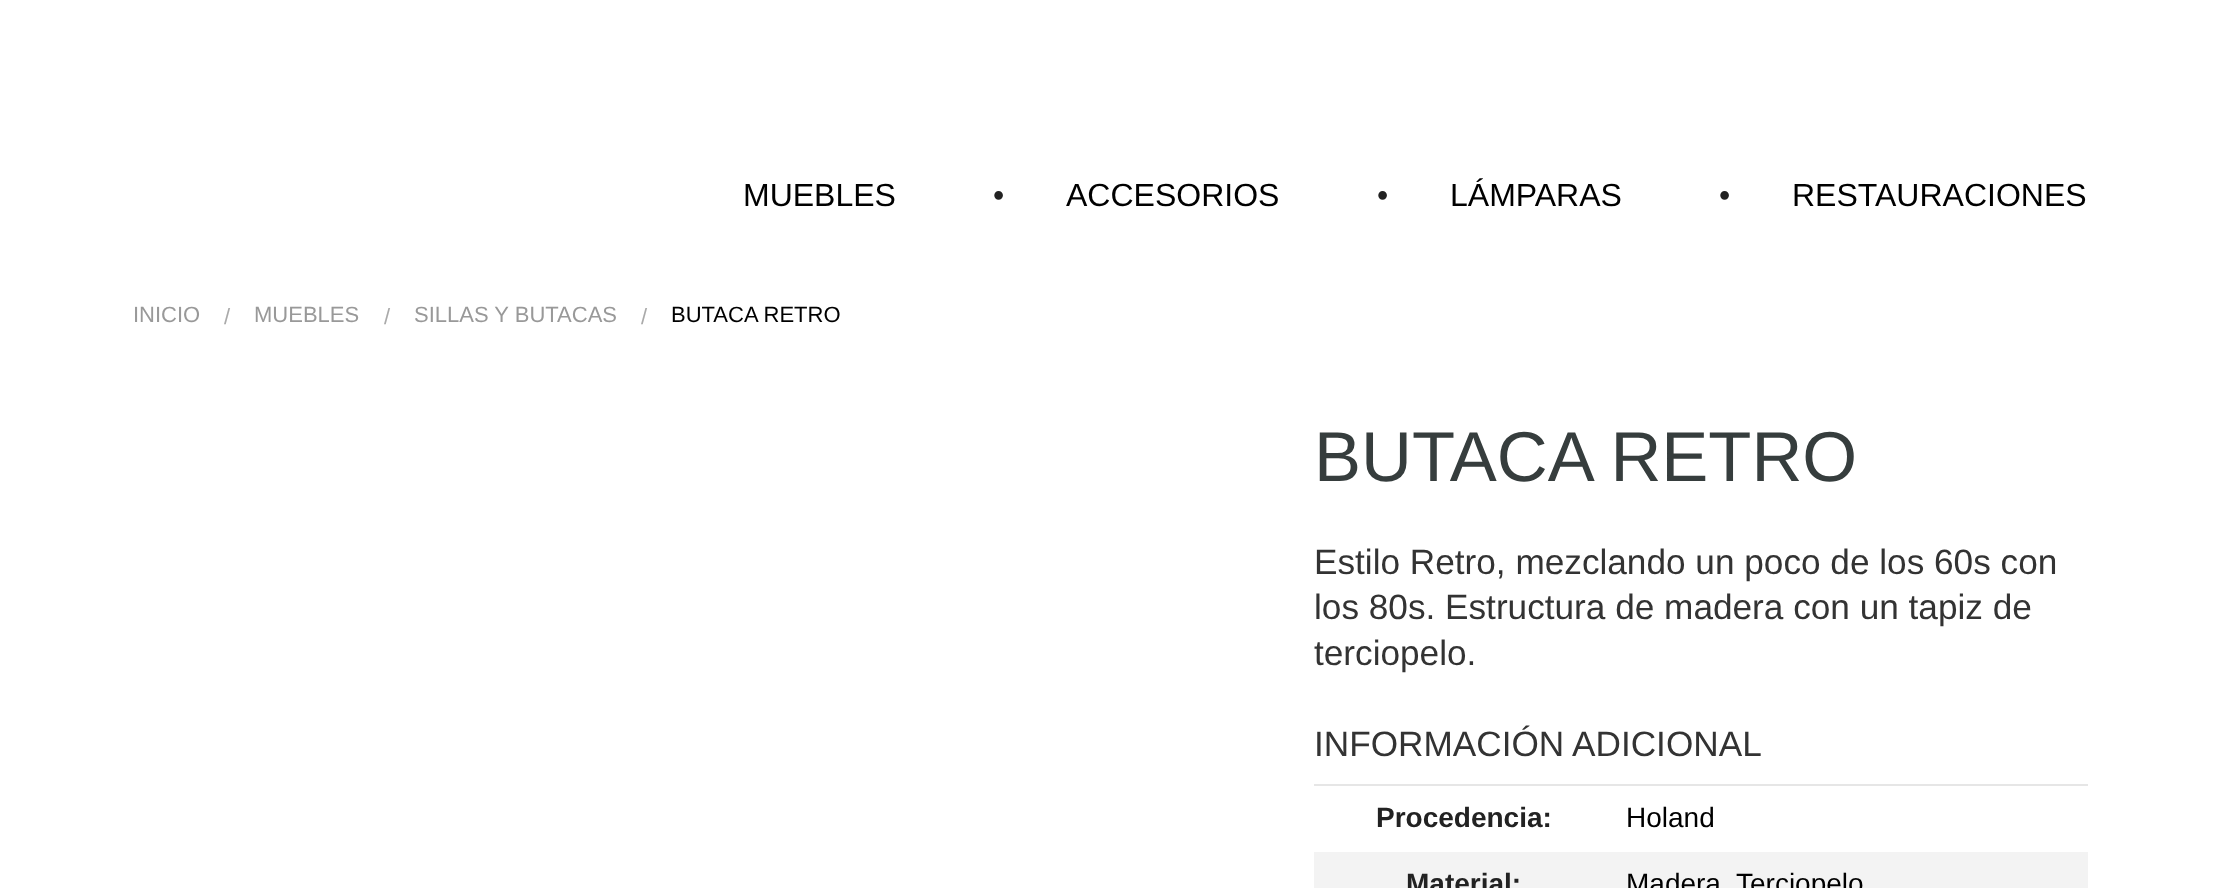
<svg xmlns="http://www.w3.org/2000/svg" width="2233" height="888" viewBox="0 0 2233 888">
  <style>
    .t1 { font: 32px Liberation Sans; fill: #000; }
    .t2 { font: 32px Liberation Sans; fill: #222; }
    .t3 { font: 22px Liberation Sans; fill: #999; }
    .t4 { font: 22px Liberation Sans; fill: #aaa; }
    .t5 { font: 22px Liberation Sans; fill: #000; }
    .t6 { font: 70.5px Liberation Sans; fill: #363d3d; }
    .t7 { font: 35.2px Liberation Sans; fill: #333; }
    .t8 { font: bold 28px Liberation Sans; fill: #222; }
    .t9 { font: 28px Liberation Sans; fill: #000; }
  </style>
  <rect width="100%" height="100%" fill="#fff"/>
  <text x="743" y="206" class="t1">MUEBLES</text>
  <text x="993" y="206" class="t2">•</text>
  <text x="1066" y="206" class="t1">ACCESORIOS</text>
  <text x="1377" y="206" class="t2">•</text>
  <text x="1450" y="206" class="t1">LÁMPARAS</text>
  <text x="1719" y="206" class="t2">•</text>
  <text x="1792" y="206" class="t1">RESTAURACIONES</text>
  <text x="133" y="322" class="t3">INICIO</text>
  <text x="224" y="324" class="t4">/</text>
  <text x="254" y="322" class="t3">MUEBLES</text>
  <text x="384" y="324" class="t4">/</text>
  <text x="414" y="322" class="t3">SILLAS Y BUTACAS</text>
  <text x="641" y="324" class="t4">/</text>
  <text x="671" y="322" class="t5">BUTACA RETRO</text>
  <text x="1314" y="481" class="t6">BUTACA RETRO</text>
  <text x="1314" y="574" class="t7">Estilo Retro, mezclando un poco de los 60s con</text>
  <text x="1314" y="619" class="t7">los 80s. Estructura de madera con un tapiz de</text>
  <text x="1314" y="665" class="t7">terciopelo.</text>
  <text x="1314" y="756" class="t7">INFORMACIÓN ADICIONAL</text>
  <rect x="1314" y="784" width="774" height="2" fill="#e6e6e6"/>
  <text x="1376" y="827" class="t8">Procedencia:</text>
  <text x="1626" y="827" class="t9">Holand</text>
  <rect x="1314" y="852" width="774" height="36" fill="#f3f3f3"/>
  <text x="1406" y="893" class="t8">Material:</text>
  <text x="1626" y="893" class="t9">Madera</text>
  <text x="1736" y="893" class="t9">Terciopelo</text>
</svg>
